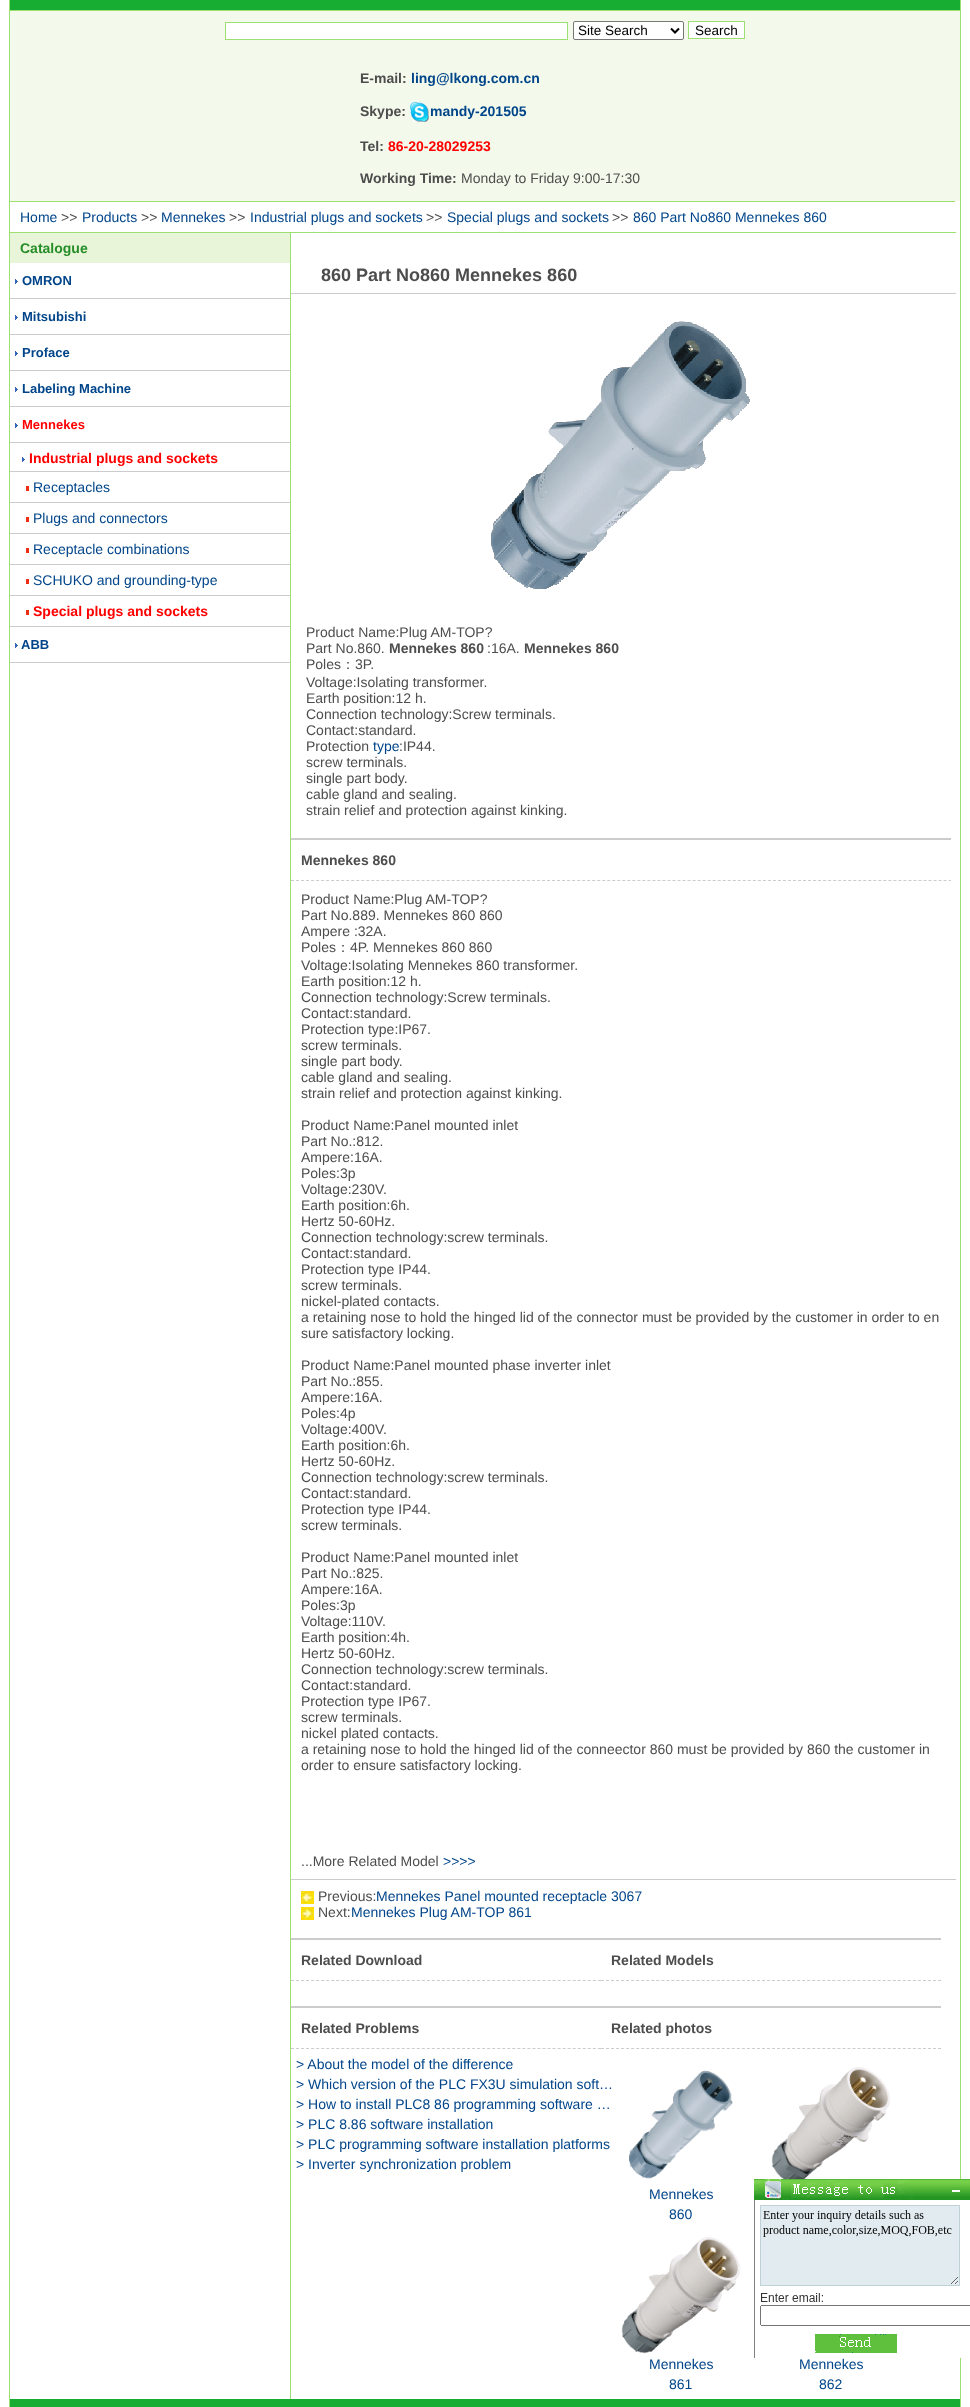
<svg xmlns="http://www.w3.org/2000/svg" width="970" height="2407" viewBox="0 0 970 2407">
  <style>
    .t1 { font: 13.5px Liberation Sans; fill: #000; }
    .t2 { font: bold 14px Liberation Sans; fill: #4d4d4d; }
    .t3 { font: bold 14px Liberation Sans; fill: #00458a; }
    .t4 { font: bold 14px Liberation Sans; fill: #f00; }
    .t5 { font: 14px Liberation Sans; fill: #4d4d4d; }
    .t6 { font: 14px Liberation Sans; fill: #00458a; }
    .t7 { font: bold 14px Liberation Sans; fill: #268e28; }
    .t8 { font: bold 13px Liberation Sans; fill: #00458a; }
    .t9 { font: bold 13px Liberation Sans; fill: #f00; }
    .t10 { font: bold 18px Liberation Sans; fill: #4d4d4d; }
    .t11 { font: 500 14px WenQuanYi Zen Hei; fill: #4d4d4d; }
  </style>
  <rect width="100%" height="100%" fill="#fff"/>
  <rect x="9.5" y="-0.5" width="951" height="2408" fill="none" stroke="#9ddf71"/>
  <rect x="10" y="0" width="950" height="10" fill="#17ac32"/>
  <rect x="10" y="11" width="950" height="190" fill="#f3faeb"/>
  <rect x="10" y="10" width="950" height="1" fill="#9ddf71"/>
  <rect x="225.5" y="22.5" width="342" height="17" fill="#fff" stroke="#9ddf71"/>
  <rect x="573.5" y="21.5" width="110" height="18" rx="1.5" fill="#fff" stroke="#767676"/>
  <path d="M671 28.5L675 32.5L679 28.5" fill="none" stroke="#000" stroke-width="2"/>
  <text x="578" y="35" class="t1">Site Search</text>
  <rect x="688.5" y="21.5" width="56" height="17" fill="#fff" stroke="#9ddf71"/>
  <text x="695" y="35" class="t1">Search</text>
  <text x="360" y="83" class="t2">E-mail:</text>
  <text x="411" y="83" class="t3">ling@lkong.com.cn</text>
  <text x="360" y="116" class="t2">Skype:</text>
  <image x="410" y="102" width="19" height="20" href="images/1.png"/>
  <text x="430" y="116" class="t3">mandy-201505</text>
  <text x="360" y="151" class="t2">Tel:</text>
  <text x="388" y="151" class="t4">86-20-28029253</text>
  <text x="360" y="183" class="t2">Working Time:</text>
  <text x="461" y="183" class="t5">Monday to Friday 9:00-17:30</text>
  <rect x="10" y="201" width="945" height="1" fill="#9ddf71"/>
  <text x="20" y="222" class="t6">Home</text>
  <text x="61" y="222" class="t5">&gt;&gt;</text>
  <text x="82" y="222" class="t6">Products</text>
  <text x="141" y="222" class="t5">&gt;&gt;</text>
  <text x="161" y="222" class="t6">Mennekes</text>
  <text x="229" y="222" class="t5">&gt;&gt;</text>
  <text x="250" y="222" class="t6">Industrial plugs and sockets</text>
  <text x="426" y="222" class="t5">&gt;&gt;</text>
  <text x="447" y="222" class="t6">Special plugs and sockets</text>
  <text x="612" y="222" class="t5">&gt;&gt;</text>
  <text x="633" y="222" class="t6">860 Part No860 Mennekes 860</text>
  <rect x="10" y="232" width="946" height="1" fill="#9ddf71"/>
  <rect x="10" y="233" width="280" height="30" fill="#e9f5d8"/>
  <text x="20" y="253" class="t7">Catalogue</text>
  <rect x="10" y="298" width="280" height="1" fill="#ccc"/>
  <image x="15" y="279" width="3" height="5" href="images/2.png"/>
  <text x="22" y="285" class="t8">OMRON</text>
  <rect x="10" y="334" width="280" height="1" fill="#ccc"/>
  <image x="15" y="315" width="3" height="5" href="images/2.png"/>
  <text x="22" y="321" class="t8">Mitsubishi</text>
  <rect x="10" y="370" width="280" height="1" fill="#ccc"/>
  <image x="15" y="351" width="3" height="5" href="images/2.png"/>
  <text x="22" y="357" class="t8">Proface</text>
  <rect x="10" y="406" width="280" height="1" fill="#ccc"/>
  <image x="15" y="387" width="3" height="5" href="images/2.png"/>
  <text x="22" y="393" class="t8">Labeling Machine</text>
  <rect x="10" y="442" width="280" height="1" fill="#ccc"/>
  <image x="15" y="423" width="3" height="5" href="images/2.png"/>
  <text x="22" y="429" class="t9">Mennekes</text>
  <rect x="10" y="471" width="280" height="1" fill="#ccc"/>
  <image x="22" y="457" width="3" height="5" href="images/2.png"/>
  <text x="29" y="463" class="t4">Industrial plugs and sockets</text>
  <rect x="10" y="502" width="280" height="1" fill="#ccc"/>
  <rect x="26" y="486" width="3" height="5" fill="#ef2d13"/>
  <text x="33" y="492" class="t6">Receptacles</text>
  <rect x="10" y="533" width="280" height="1" fill="#ccc"/>
  <rect x="26" y="517" width="3" height="5" fill="#ef2d13"/>
  <text x="33" y="523" class="t6">Plugs and connectors</text>
  <rect x="10" y="564" width="280" height="1" fill="#ccc"/>
  <rect x="26" y="548" width="3" height="5" fill="#ef2d13"/>
  <text x="33" y="554" class="t6">Receptacle combinations</text>
  <rect x="10" y="595" width="280" height="1" fill="#ccc"/>
  <rect x="26" y="579" width="3" height="5" fill="#ef2d13"/>
  <text x="33" y="585" class="t6">SCHUKO and grounding-type</text>
  <rect x="10" y="626" width="280" height="1" fill="#ccc"/>
  <rect x="26" y="610" width="3" height="5" fill="#ef2d13"/>
  <text x="33" y="616" class="t4">Special plugs and sockets</text>
  <rect x="10" y="662" width="280" height="1" fill="#ccc"/>
  <image x="15" y="643" width="3" height="5" href="images/2.png"/>
  <text x="21" y="649" class="t8">ABB</text>
  <rect x="290" y="232" width="1" height="2167" fill="#9ddf71"/>
  <rect x="291" y="293" width="665" height="1" fill="#ccc"/>
  <text x="321" y="281" class="t10">860 Part No860 Mennekes 860</text>
  <image x="491" y="321" width="259" height="268" href="images/3.png"/>
  <text x="306" y="637" class="t5">Product Name:Plug AM-TOP?</text>
  <text x="306" y="653" class="t5">Part No.860.</text>
  <text x="389" y="653" class="t2">Mennekes 860</text>
  <text x="487" y="653" class="t5">:16A.</text>
  <text x="524" y="653" class="t2">Mennekes 860</text>
  <text x="306" y="669" class="t5">Poles</text>
  <text x="341" y="669" class="t11">：</text>
  <text x="355" y="669" class="t5">3P.</text>
  <text x="306" y="687" class="t5">Voltage:Isolating transformer.</text>
  <text x="306" y="703" class="t5">Earth position:12 h.</text>
  <text x="306" y="719" class="t5">Connection technology:Screw terminals.</text>
  <text x="306" y="735" class="t5">Contact:standard.</text>
  <text x="306" y="751" class="t5">Protection</text>
  <text x="373" y="751" class="t6">type</text>
  <text x="399" y="751" class="t5">:IP44.</text>
  <text x="306" y="767" class="t5">screw terminals.</text>
  <text x="306" y="783" class="t5">single part body.</text>
  <text x="306" y="799" class="t5">cable gland and sealing.</text>
  <text x="306" y="815" class="t5">strain relief and protection against kinking.</text>
  <rect x="291" y="838" width="660" height="2" fill="#ccc"/>
  <path d="M291 880.5H951" fill="none" stroke="#ccc" stroke-dasharray="3 2.02"/>
  <text x="301" y="865" class="t2">Mennekes 860</text>
  <text x="301" y="904" class="t5">Product Name:Plug AM-TOP?</text>
  <text x="301" y="920" class="t5">Part No.889. Mennekes 860 860</text>
  <text x="301" y="936" class="t5">Ampere :32A.</text>
  <text x="301" y="952" class="t5">Poles</text>
  <text x="336" y="952" class="t11">：</text>
  <text x="350" y="952" class="t5">4P. Mennekes 860 860</text>
  <text x="301" y="970" class="t5">Voltage:Isolating Mennekes 860 transformer.</text>
  <text x="301" y="986" class="t5">Earth position:12 h.</text>
  <text x="301" y="1002" class="t5">Connection technology:Screw terminals.</text>
  <text x="301" y="1018" class="t5">Contact:standard.</text>
  <text x="301" y="1034" class="t5">Protection type:IP67.</text>
  <text x="301" y="1050" class="t5">screw terminals.</text>
  <text x="301" y="1066" class="t5">single part body.</text>
  <text x="301" y="1082" class="t5">cable gland and sealing.</text>
  <text x="301" y="1098" class="t5">strain relief and protection against kinking.</text>
  <text x="301" y="1130" class="t5">Product Name:Panel mounted inlet</text>
  <text x="301" y="1146" class="t5">Part No.:812.</text>
  <text x="301" y="1162" class="t5">Ampere:16A.</text>
  <text x="301" y="1178" class="t5">Poles:3p</text>
  <text x="301" y="1194" class="t5">Voltage:230V.</text>
  <text x="301" y="1210" class="t5">Earth position:6h.</text>
  <text x="301" y="1226" class="t5">Hertz 50-60Hz.</text>
  <text x="301" y="1242" class="t5">Connection technology:screw terminals.</text>
  <text x="301" y="1258" class="t5">Contact:standard.</text>
  <text x="301" y="1274" class="t5">Protection type IP44.</text>
  <text x="301" y="1290" class="t5">screw terminals.</text>
  <text x="301" y="1306" class="t5">nickel-plated contacts.</text>
  <text x="301" y="1322" class="t5">a retaining nose to hold the hinged lid of the connector must be provided by the customer in order to en</text>
  <text x="301" y="1338" class="t5">sure satisfactory locking.</text>
  <text x="301" y="1370" class="t5">Product Name:Panel mounted phase inverter inlet</text>
  <text x="301" y="1386" class="t5">Part No.:855.</text>
  <text x="301" y="1402" class="t5">Ampere:16A.</text>
  <text x="301" y="1418" class="t5">Poles:4p</text>
  <text x="301" y="1434" class="t5">Voltage:400V.</text>
  <text x="301" y="1450" class="t5">Earth position:6h.</text>
  <text x="301" y="1466" class="t5">Hertz 50-60Hz.</text>
  <text x="301" y="1482" class="t5">Connection technology:screw terminals.</text>
  <text x="301" y="1498" class="t5">Contact:standard.</text>
  <text x="301" y="1514" class="t5">Protection type IP44.</text>
  <text x="301" y="1530" class="t5">screw terminals.</text>
  <text x="301" y="1562" class="t5">Product Name:Panel mounted inlet</text>
  <text x="301" y="1578" class="t5">Part No.:825.</text>
  <text x="301" y="1594" class="t5">Ampere:16A.</text>
  <text x="301" y="1610" class="t5">Poles:3p</text>
  <text x="301" y="1626" class="t5">Voltage:110V.</text>
  <text x="301" y="1642" class="t5">Earth position:4h.</text>
  <text x="301" y="1658" class="t5">Hertz 50-60Hz.</text>
  <text x="301" y="1674" class="t5">Connection technology:screw terminals.</text>
  <text x="301" y="1690" class="t5">Contact:standard.</text>
  <text x="301" y="1706" class="t5">Protection type IP67.</text>
  <text x="301" y="1722" class="t5">screw terminals.</text>
  <text x="301" y="1738" class="t5">nickel plated contacts.</text>
  <text x="301" y="1754" class="t5">a retaining nose to hold the hinged lid of the conneector 860 must be provided by 860 the customer in</text>
  <text x="301" y="1770" class="t5">order to ensure satisfactory locking.</text>
  <text x="301" y="1866" class="t5">...More Related Model</text>
  <text x="443" y="1866" class="t6">&gt;&gt;&gt;&gt;</text>
  <rect x="291" y="1879" width="665" height="1" fill="#ccc"/>
  <image x="301" y="1891" width="13" height="13" href="images/4.png"/>
  <text x="318" y="1901" class="t5">Previous:</text>
  <text x="376" y="1901" class="t6">Mennekes Panel mounted receptacle 3067</text>
  <image x="301" y="1907" width="13" height="13" href="images/5.png"/>
  <text x="318" y="1917" class="t5">Next:</text>
  <text x="351" y="1917" class="t6">Mennekes Plug AM-TOP 861</text>
  <rect x="291" y="1938" width="650" height="2" fill="#ccc"/>
  <path d="M291 1980.5H601" fill="none" stroke="#ccc" stroke-dasharray="3 2.03"/>
  <text x="301" y="1965" class="t2">Related Download</text>
  <path d="M601 1980.5H941" fill="none" stroke="#ccc" stroke-dasharray="3 2.03"/>
  <text x="611" y="1965" class="t2">Related Models</text>
  <rect x="291" y="2006" width="650" height="2" fill="#ccc"/>
  <path d="M291 2048.5H601" fill="none" stroke="#ccc" stroke-dasharray="3 2.03"/>
  <text x="301" y="2033" class="t2">Related Problems</text>
  <text x="296" y="2069" class="t6">&gt; About the model of the difference</text>
  <text x="296" y="2089" class="t6">&gt; Which version of the PLC FX3U simulation soft…</text>
  <text x="296" y="2109" class="t6">&gt; How to install PLC8 86 programming software …</text>
  <text x="296" y="2129" class="t6">&gt; PLC 8.86 software installation</text>
  <text x="296" y="2149" class="t6">&gt; PLC programming software installation platforms</text>
  <text x="296" y="2169" class="t6">&gt; Inverter synchronization problem</text>
  <path d="M601 2048.5H941" fill="none" stroke="#ccc" stroke-dasharray="3 2.03"/>
  <text x="611" y="2033" class="t2">Related photos</text>
  <image x="771" y="2067" width="119" height="112" href="images/6.png"/>
  <image x="629" y="2070" width="104" height="109" href="images/7.png"/>
  <text x="649" y="2199" class="t6">Mennekes</text>
  <text x="669" y="2219" class="t6">860</text>
  <image x="621" y="2237" width="119" height="117" href="images/8.png"/>
  <text x="649" y="2369" class="t6">Mennekes</text>
  <text x="669" y="2389" class="t6">861</text>
  <text x="799" y="2369" class="t6">Mennekes</text>
  <text x="819" y="2389" class="t6">862</text>
  <image x="754" y="2179" width="216" height="21" href="images/9.png"/>
  <rect x="952" y="2190" width="8" height="2" fill="#fbfdfb"/>
  <image x="754" y="2200" width="216" height="158" href="images/10.png"/>
  <rect x="10" y="2399" width="950" height="8" fill="#17ac32"/>
</svg>
